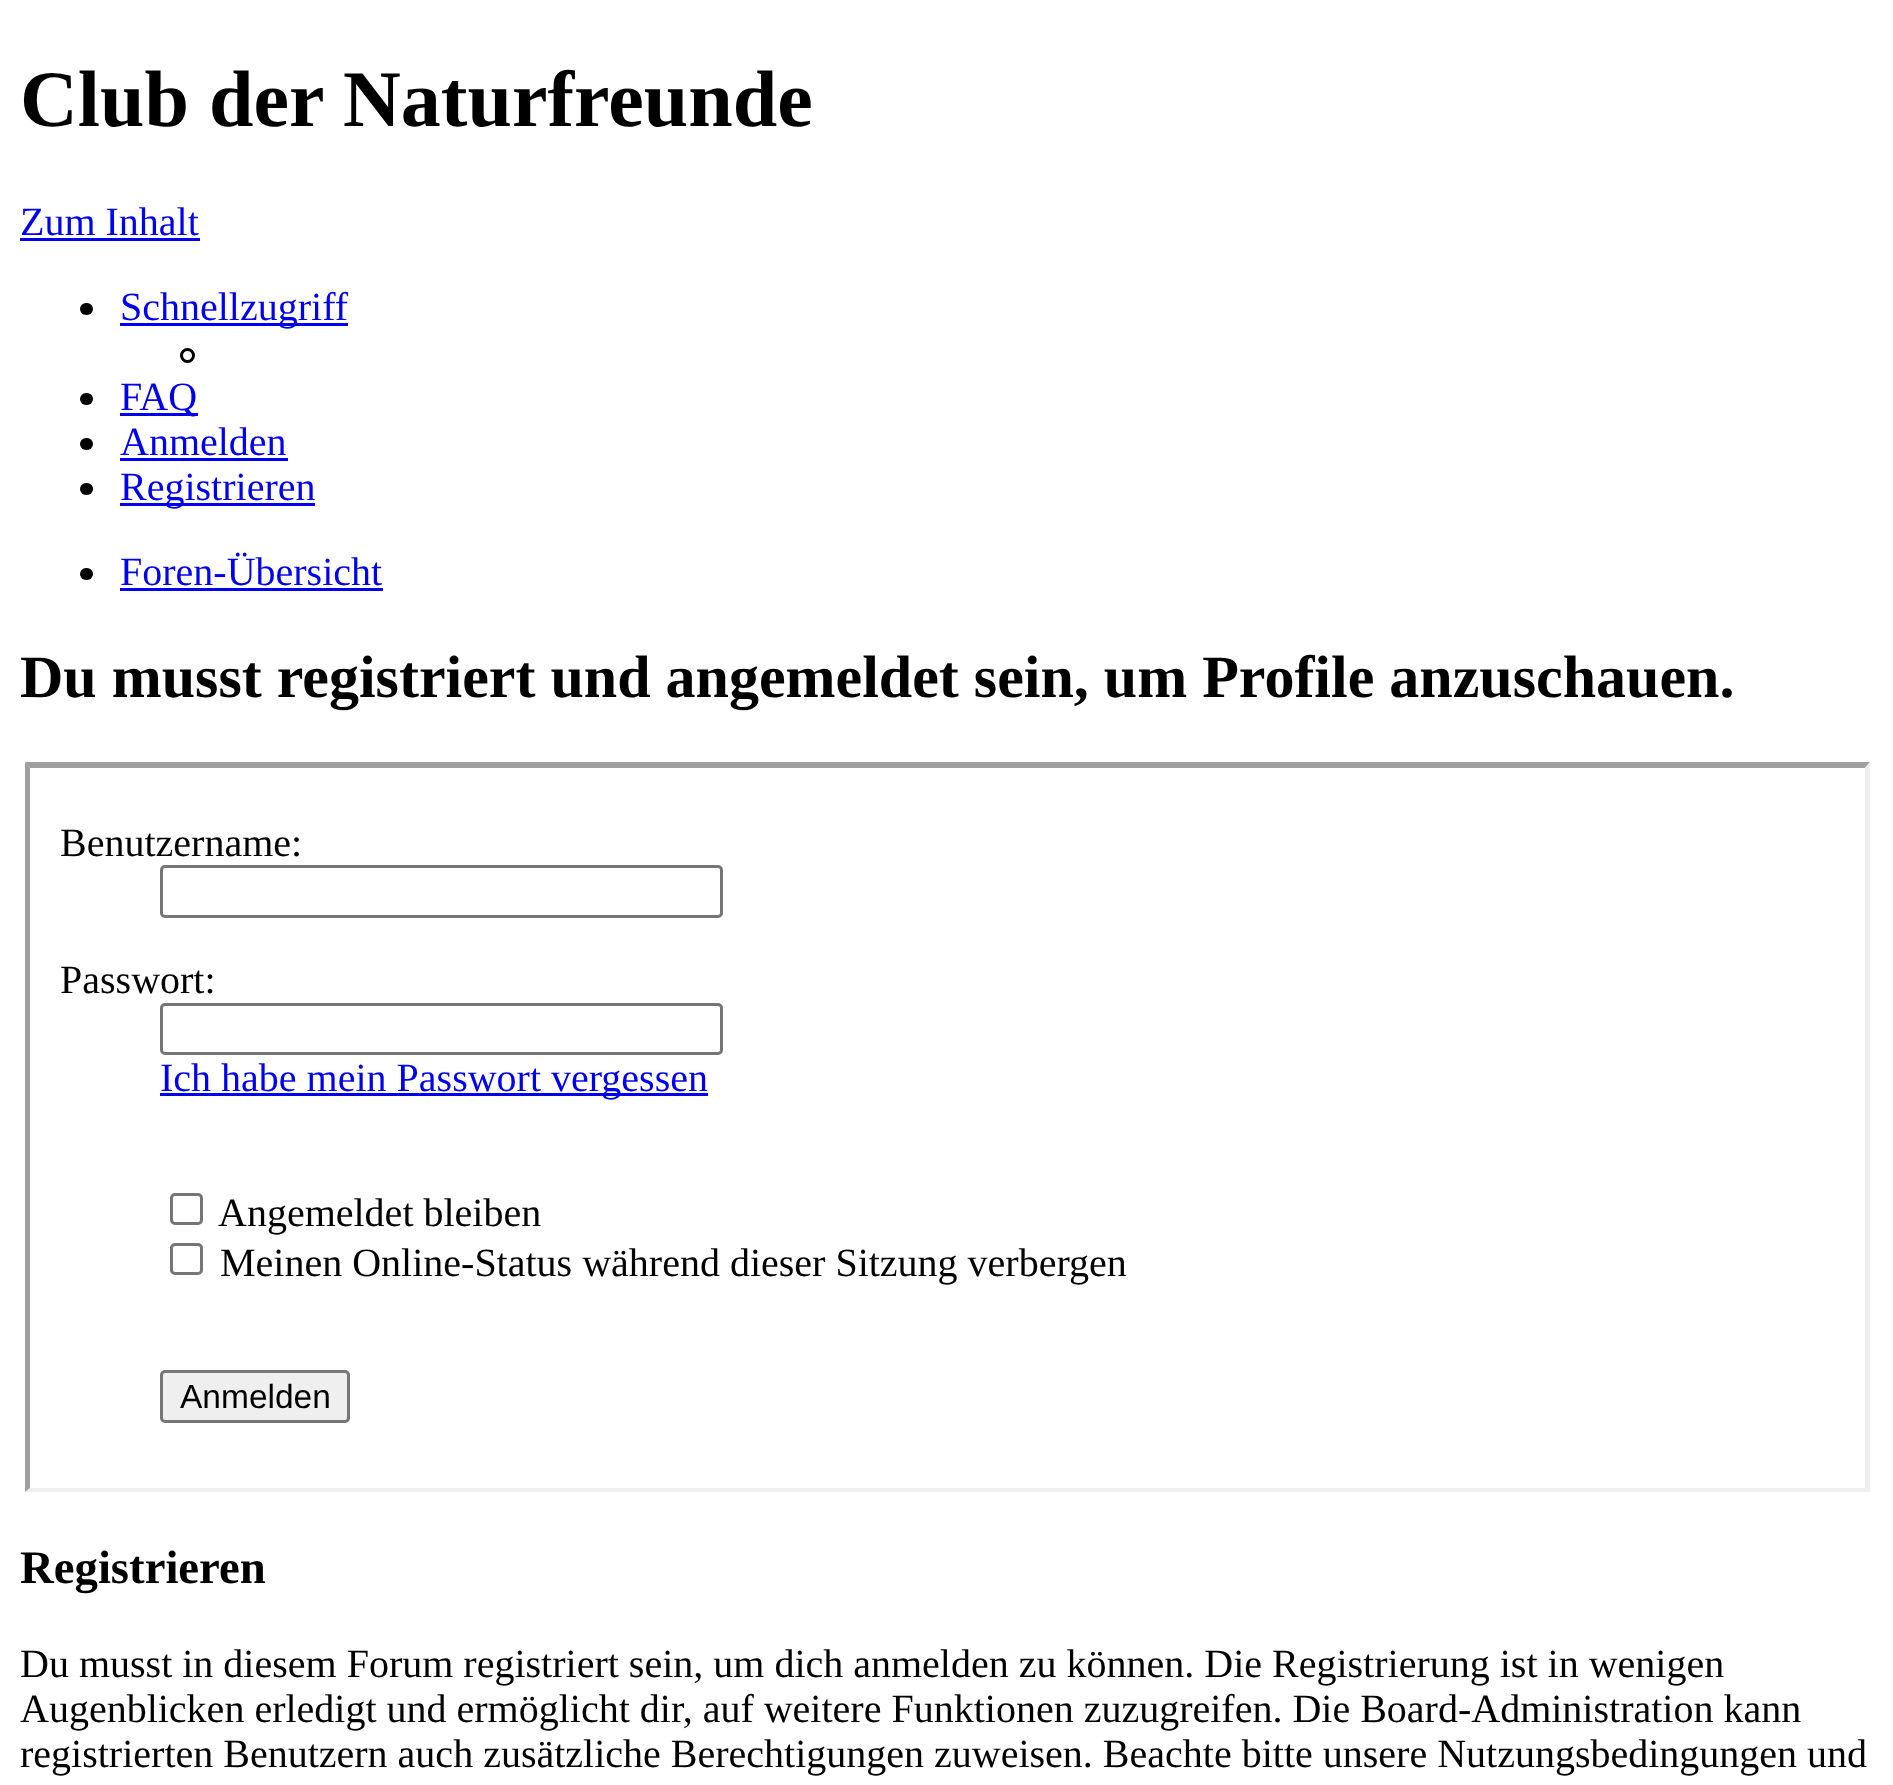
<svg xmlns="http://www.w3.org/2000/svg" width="1893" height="1785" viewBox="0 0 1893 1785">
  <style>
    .t1 { font: bold 80px Liberation Serif; fill: #000; }
    .t2 { font: 40px Liberation Serif; fill: #00e; }
    .t3 { font: bold 60px Liberation Serif; fill: #000; }
    .t4 { font: 40px Liberation Serif; fill: #000; }
    .t5 { font: 33.5px Liberation Sans; fill: #000; }
    .t6 { font: bold 46.75px Liberation Serif; fill: #000; }
  </style>
  <rect width="100%" height="100%" fill="#fff"/>
  <text x="20" y="126" class="t1">Club der Naturfreunde</text>
  <text x="20" y="235" class="t2">Zum Inhalt</text>
  <rect x="20" y="238" width="180" height="3" fill="#00e"/>
  <rect x="80" y="303" width="13" height="12" rx="6" fill="#000"/>
  <rect x="120" y="323" width="228" height="3" fill="#00e"/>
  <text x="120" y="320" class="t2">Schnellzugriff</text>
  <circle cx="187.5" cy="355.5" r="6" fill="none" stroke="#000" stroke-width="3"/>
  <rect x="80" y="393" width="13" height="12" rx="6" fill="#000"/>
  <rect x="120" y="413" width="78" height="3" fill="#00e"/>
  <text x="120" y="410" class="t2">FAQ</text>
  <rect x="80" y="438" width="13" height="12" rx="6" fill="#000"/>
  <text x="120" y="455" class="t2">Anmelden</text>
  <rect x="120" y="458" width="168" height="3" fill="#00e"/>
  <rect x="80" y="483" width="13" height="12" rx="6" fill="#000"/>
  <rect x="120" y="503" width="195" height="3" fill="#00e"/>
  <text x="120" y="500" class="t2">Registrieren</text>
  <rect x="80" y="568" width="13" height="12" rx="6" fill="#000"/>
  <text x="120" y="585" class="t2">Foren-Übersicht</text>
  <rect x="120" y="588" width="263" height="3" fill="#00e"/>
  <text x="20" y="697" class="t3">Du musst registriert und angemeldet sein, um Profile anzuschauen.</text>
  <path d="M25 762H1870L1865 768H30Z" fill="#9f9f9f"/>
  <path d="M1870 762V1492L1865 1488V768Z" fill="#efefef"/>
  <path d="M1870 1492H25L30 1488H1865Z" fill="#efefef"/>
  <path d="M25 1492V762L30 768V1488Z" fill="#9f9f9f"/>
  <text x="60" y="856" class="t4">Benutzername:</text>
  <rect x="161.5" y="866.5" width="560" height="50" rx="3.5" fill="none" stroke="#767676" stroke-width="3"/>
  <text x="60" y="993" class="t4">Passwort:</text>
  <rect x="161.5" y="1004.5" width="560" height="49" rx="3.5" fill="none" stroke="#767676" stroke-width="3"/>
  <rect x="160" y="1093" width="548" height="3" fill="#00e"/>
  <text x="160" y="1091" class="t2">Ich habe mein Passwort vergessen</text>
  <rect x="171.5" y="1194.5" width="30" height="29" rx="3.5" fill="none" stroke="#767676" stroke-width="3"/>
  <text x="218" y="1226" class="t4">Angemeldet bleiben</text>
  <rect x="171.5" y="1244.5" width="30" height="29" rx="3.5" fill="none" stroke="#767676" stroke-width="3"/>
  <text x="220" y="1276" class="t4">Meinen Online-Status während dieser Sitzung verbergen</text>
  <rect x="161.5" y="1371.5" width="187" height="50" rx="3.5" fill="#efefef" stroke="#767676" stroke-width="3"/>
  <text x="180" y="1408" class="t5">Anmelden</text>
  <text x="20" y="1583" class="t6">Registrieren</text>
  <text x="20" y="1677" class="t4">Du musst in diesem Forum registriert sein, um dich anmelden zu können. Die Registrierung ist in wenigen</text>
  <text x="20" y="1722" class="t4">Augenblicken erledigt und ermöglicht dir, auf weitere Funktionen zuzugreifen. Die Board-Administration kann</text>
  <text x="20" y="1767" class="t4">registrierten Benutzern auch zusätzliche Berechtigungen zuweisen. Beachte bitte unsere Nutzungsbedingungen und</text>
</svg>
